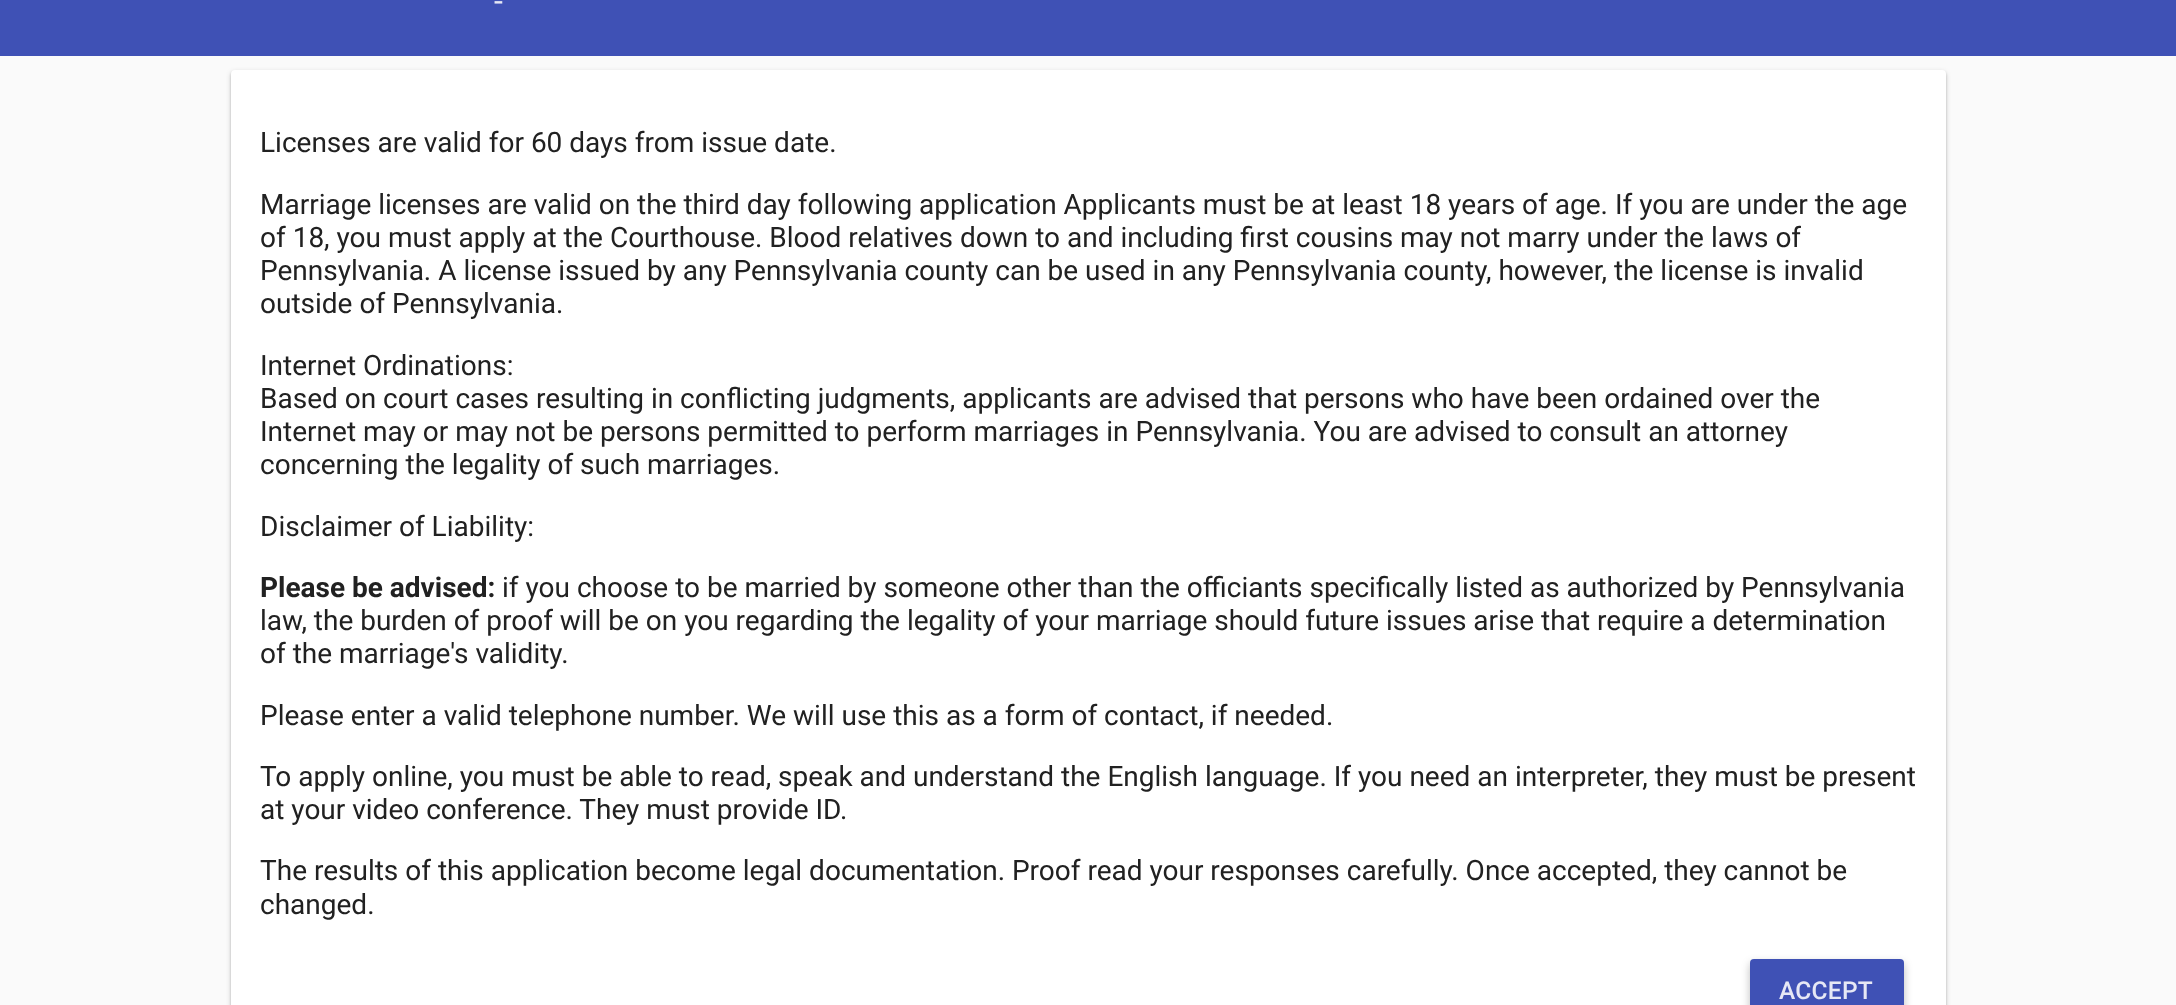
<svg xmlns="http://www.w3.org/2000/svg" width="2176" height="1005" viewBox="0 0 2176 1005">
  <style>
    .t1 { font: 32px Roboto; fill: #e6e8f5; }
    .t2 { font: 28px Roboto; fill: #212121; }
    .t3 { font: bold 28px Roboto; fill: #212121; }
    .t4 { font: 500 24.5px Roboto; letter-spacing: 0.25px; fill: #e6e8f5; }
  </style>
  <rect width="100%" height="100%" fill="#fafafa"/>
  <rect x="0" y="0" width="2176" height="56" fill="#3f51b5"/>
  <text x="494" y="12" class="t1">-</text>
  <rect x="231" y="72" width="1715" height="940" rx="4" fill="#00000024" filter="blur(1px)"/>
  <rect x="231" y="72" width="1715" height="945" rx="4" fill="#00000033" filter="blur(2.5px)"/>
  <rect x="231" y="70" width="1715" height="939" rx="4" fill="#fff"/>
  <text x="260" y="152" class="t2">Licenses are valid for 60 days from issue date.</text>
  <text x="260" y="214" class="t2">Marriage licenses are valid on the third day following application Applicants must be at least 18 years of age. If you are under the age</text>
  <text x="260" y="247" class="t2">of 18, you must apply at the Courthouse. Blood relatives down to and including first cousins may not marry under the laws of</text>
  <text x="260" y="280" class="t2">Pennsylvania. A license issued by any Pennsylvania county can be used in any Pennsylvania county, however, the license is invalid</text>
  <text x="260" y="313" class="t2">outside of Pennsylvania.</text>
  <text x="260" y="375" class="t2">Internet Ordinations:</text>
  <text x="260" y="408" class="t2">Based on court cases resulting in conflicting judgments, applicants are advised that persons who have been ordained over the</text>
  <text x="260" y="441" class="t2">Internet may or may not be persons permitted to perform marriages in Pennsylvania. You are advised to consult an attorney</text>
  <text x="260" y="474" class="t2">concerning the legality of such marriages.</text>
  <text x="260" y="536" class="t2">Disclaimer of Liability:</text>
  <text x="260" y="597" class="t3">Please be advised:</text>
  <text x="502" y="597" class="t2">if you choose to be married by someone other than the officiants specifically listed as authorized by Pennsylvania</text>
  <text x="260" y="630" class="t2">law, the burden of proof will be on you regarding the legality of your marriage should future issues arise that require a determination</text>
  <text x="260" y="663" class="t2">of the marriage's validity.</text>
  <text x="260" y="725" class="t2">Please enter a valid telephone number. We will use this as a form of contact, if needed.</text>
  <text x="260" y="786" class="t2">To apply online, you must be able to read, speak and understand the English language. If you need an interpreter, they must be present</text>
  <text x="260" y="819" class="t2">at your video conference. They must provide ID.</text>
  <text x="260" y="880" class="t2">The results of this application become legal documentation. Proof read your responses carefully. Once accepted, they cannot be</text>
  <text x="260" y="914" class="t2">changed.</text>
  <rect x="1750" y="963" width="154" height="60" rx="4" fill="#00000042" filter="blur(4.5px)"/>
  <rect x="1750" y="959" width="154" height="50" rx="4" fill="#3f51b5"/>
  <text x="1779" y="999" class="t4">ACCEPT</text>
</svg>
